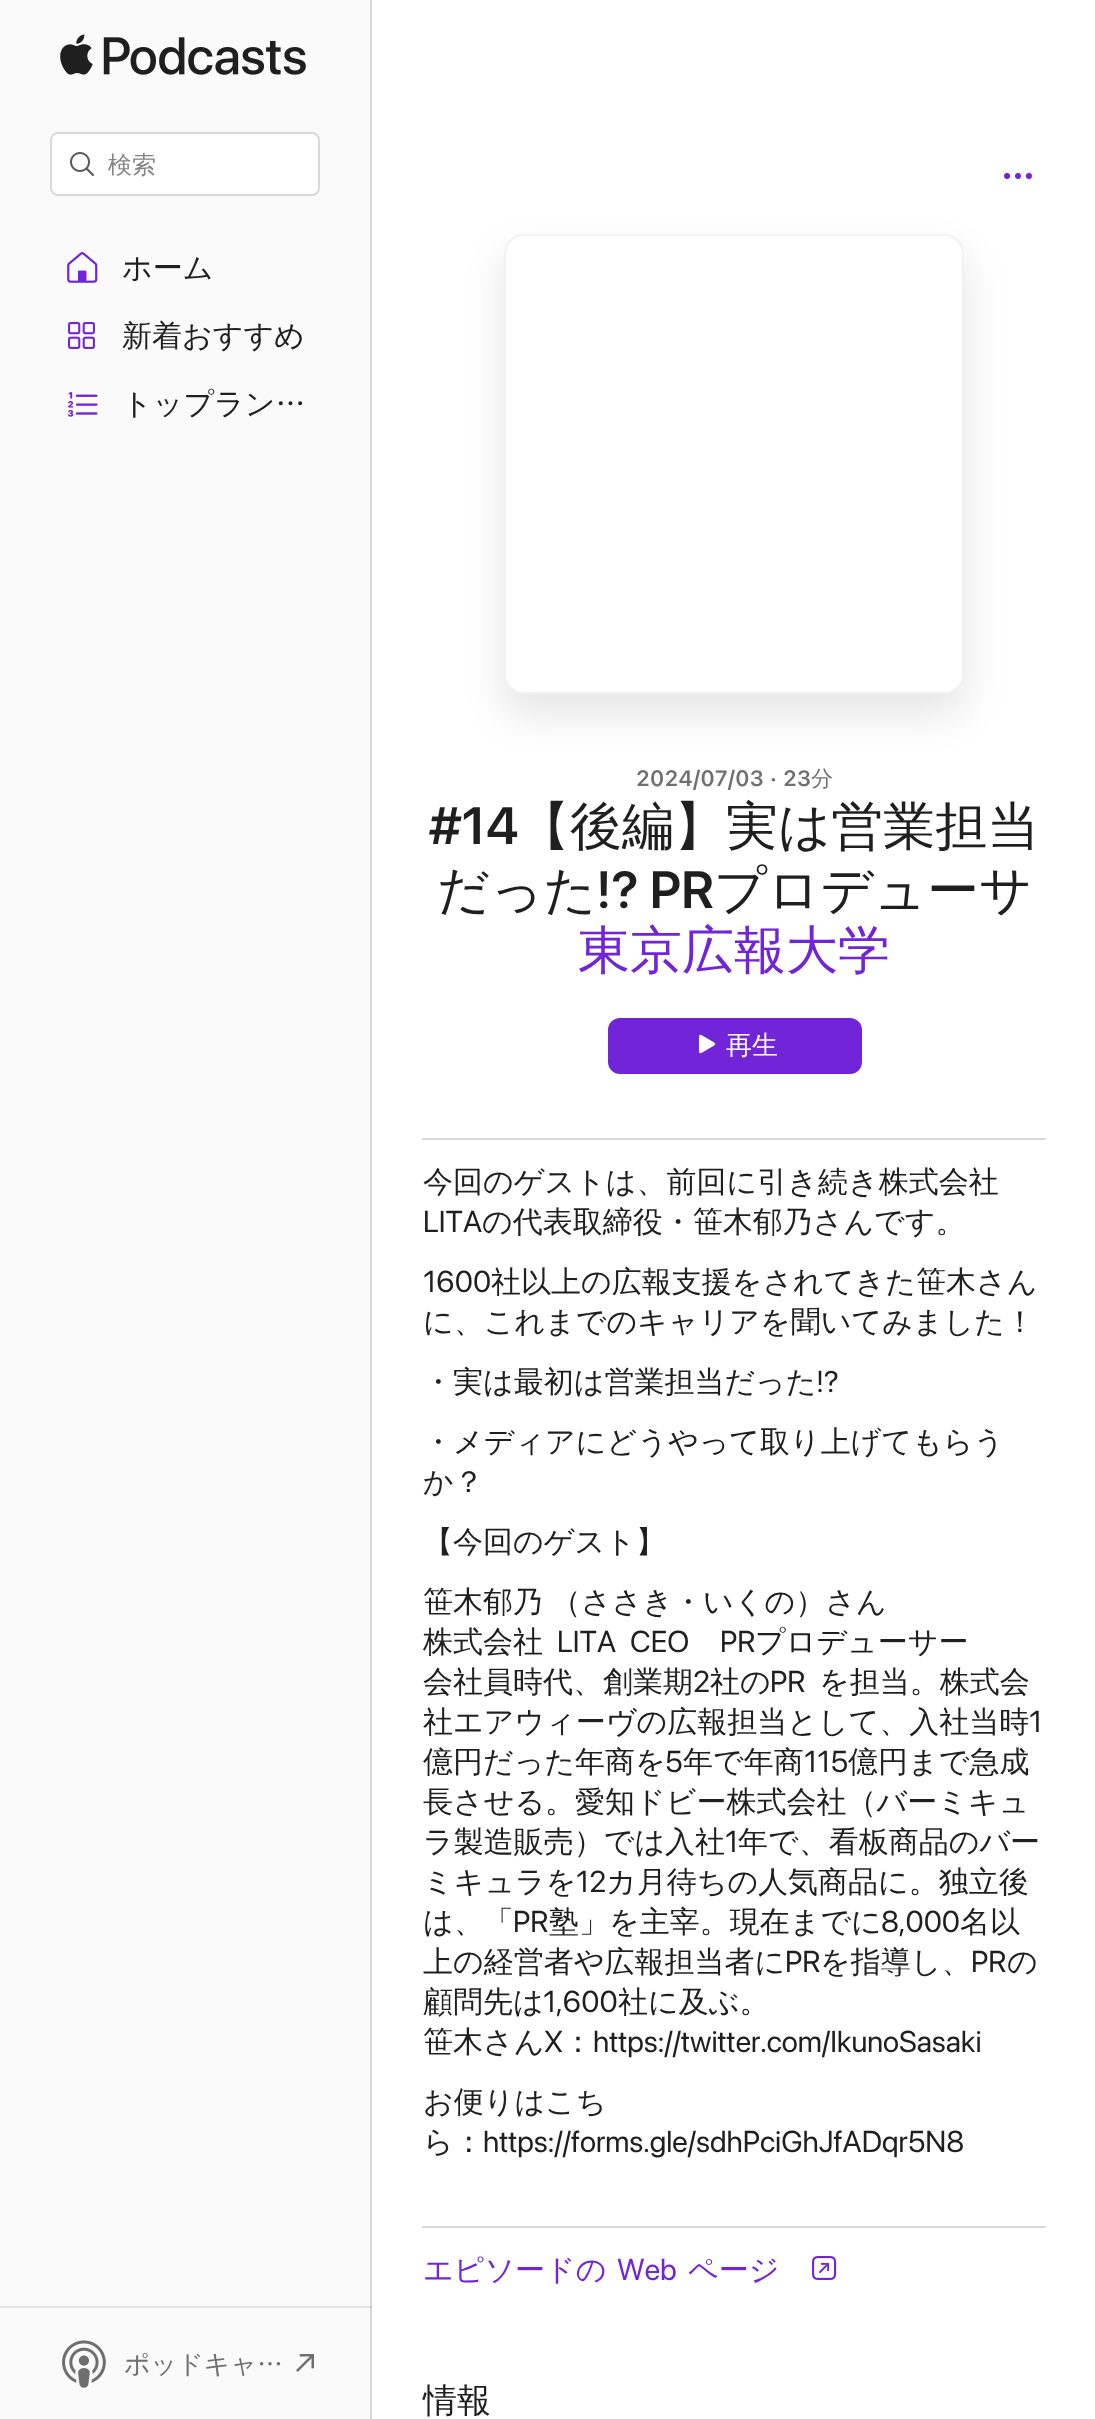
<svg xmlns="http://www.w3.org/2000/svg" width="1095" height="2419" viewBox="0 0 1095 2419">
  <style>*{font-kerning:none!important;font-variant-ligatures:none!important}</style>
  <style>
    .t1 { font: 500 24px WenQuanYi Zen Hei; fill: #858585; }
    .t2 { font: 500 30px WenQuanYi Zen Hei; fill: #1f1f1f; }
    .t3 { font: 500 26px WenQuanYi Zen Hei; fill: #707070; }
    .t4 { font: 600 22px SF; fill: #707070; }
    .t5 { font: 500 22px WenQuanYi Zen Hei; fill: #707070; }
    .t6 { font: 600 52px 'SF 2'; fill: #1f1f1f; }
    .t7 { font: 500 52px WenQuanYi Zen Hei; fill: #1f1f1f; }
    .t8 { font: 500 52px WenQuanYi Zen Hei; fill: #7224d8; }
    .t9 { font: 500 26px WenQuanYi Zen Hei; fill: #fff; }
    .t10 { font: 30px SF; fill: #1f1f1f; }
    .t11 { font: 500 30px WenQuanYi Zen Hei; fill: #7224d8; }
    .t12 { font: 30px SF; fill: #7224d8; }
    .t13 { font: 500 34px WenQuanYi Zen Hei; fill: #1f1f1f; }
  </style>
  <rect width="100%" height="100%" fill="#fff"/>
  <rect x="0" y="0" width="370" height="2419" fill="#fafafa"/>
  <rect x="0" y="2306" width="372" height="2" fill="#e1e1e1"/>
  <rect x="370" y="0" width="2" height="2419" fill="#d5d5d5"/>
  <rect x="370" y="2306" width="2" height="2" fill="#c0c0c0"/>
  <image x="60" y="34" width="246" height="41" href="images/1.png"/>
  <rect x="51" y="133" width="268" height="62" rx="7" fill="#fff" stroke="#d9d9d9" stroke-width="2"/>
  <image x="70" y="152" width="24" height="24" href="images/2.png"/>
  <text x="108" y="173" class="t1">検索</text>
  <image x="67" y="252" width="31" height="31" href="images/3.png"/>
  <text x="122" y="278" class="t2">ホーム</text>
  <image x="68" y="322" width="27" height="27" href="images/4.png"/>
  <text x="122" y="346" class="t2">新着おすすめ</text>
  <image x="68" y="392" width="30" height="25" href="images/5.png"/>
  <text x="122" y="414" class="t2">トップラン…</text>
  <image x="62" y="2340" width="44" height="48" href="images/6.png"/>
  <text x="124" y="2373" class="t3">ポッドキャ…</text>
  <image x="296" y="2354" width="18" height="18" href="images/7.png"/>
  <image x="1004" y="172" width="28" height="8" href="images/8.png"/>
  <rect x="504" y="254" width="460" height="460" rx="20" fill="#0000001a" filter="blur(20px)"/>
  <rect x="504" y="234" width="460" height="460" rx="20" fill="#fff"/>
  <rect x="505" y="235" width="458" height="458" rx="19" fill="none" stroke="#8080801a" stroke-width="2"/>
  <text x="636" y="786" class="t4">2024/07/03 · 23</text>
  <text x="811" y="786" class="t5">分</text>
  <text x="429" y="844" class="t6">#14</text>
  <text x="518" y="844" class="t7">【後編】実は営業担当</text>
  <text x="437" y="908" class="t7">だった</text>
  <text x="596" y="908" word-spacing="1" class="t6">!? PR</text>
  <text x="714" y="908" class="t7">プロデューサ</text>
  <text x="578" y="968" class="t8">東京広報大学</text>
  <rect x="608" y="1018" width="254" height="56" rx="12" fill="#7224d8"/>
  <image x="699" y="1034" width="17" height="20" href="images/9.png"/>
  <text x="726" y="1054" class="t9">再生</text>
  <rect x="422" y="1138" width="624" height="2" fill="#d9d9d9"/>
  <text x="423" y="1192" class="t2">今回のゲストは、前回に引き続き株式会社</text>
  <text x="423" y="1232" class="t10">LITA</text>
  <text x="482" y="1232" class="t2">の代表取締役・笹木郁乃さんです。</text>
  <text x="423" y="1292" class="t10">1600</text>
  <text x="491" y="1292" class="t2">社以上の広報支援をされてきた笹木さん</text>
  <text x="423" y="1332" class="t2">に、これまでのキャリアを聞いてみました！</text>
  <text x="423" y="1392" class="t2">・実は最初は営業担当だった</text>
  <text x="816" y="1392" class="t10">!?</text>
  <text x="423" y="1452" class="t2">・メディアにどうやって取り上げてもらう</text>
  <text x="423" y="1492" class="t2">か？</text>
  <text x="423" y="1552" class="t2">【今回のゲスト】</text>
  <text x="423" y="1612" word-spacing="-1" class="t2">笹木郁乃 （ささき・いくの）さん</text>
  <text x="423" y="1652" class="t2">株式会社</text>
  <text x="557" y="1652" word-spacing="8" class="t10">LITA CEO</text>
  <text x="720" y="1652" class="t10">PR</text>
  <text x="755" y="1652" class="t2">プロデューサー</text>
  <text x="423" y="1692" class="t2">会社員時代、創業期</text>
  <text x="693" y="1692" class="t10">2</text>
  <text x="710" y="1692" class="t2">社の</text>
  <text x="770" y="1692" class="t10">PR</text>
  <text x="819" y="1692" class="t2">を担当。株式会</text>
  <text x="423" y="1732" class="t2">社エアウィーヴの広報担当として、入社当時</text>
  <text x="1029" y="1732" class="t10">1</text>
  <text x="423" y="1772" class="t2">億円だった年商を</text>
  <text x="665" y="1772" class="t10">5</text>
  <text x="683" y="1772" class="t2">年で年商</text>
  <text x="804" y="1772" class="t10">115</text>
  <text x="848" y="1772" class="t2">億円まで急成</text>
  <text x="423" y="1812" class="t2">長させる。愛知ドビー株式会社（バーミキュ</text>
  <text x="423" y="1852" class="t2">ラ製造販売）では入社</text>
  <text x="725" y="1852" class="t10">1</text>
  <text x="738" y="1852" class="t2">年で、看板商品のバー</text>
  <text x="423" y="1892" class="t2">ミキュラを</text>
  <text x="576" y="1892" class="t10">12</text>
  <text x="606" y="1892" class="t2">カ月待ちの人気商品に。独立後</text>
  <text x="423" y="1932" class="t2">は、「</text>
  <text x="513" y="1932" class="t10">PR</text>
  <text x="549" y="1932" class="t2">塾」を主宰。現在までに</text>
  <text x="881" y="1932" class="t10">8,000</text>
  <text x="960" y="1932" class="t2">名以</text>
  <text x="423" y="1972" class="t2">上の経営者や広報担当者に</text>
  <text x="785" y="1972" class="t10">PR</text>
  <text x="820" y="1972" class="t2">を指導し、</text>
  <text x="971" y="1972" class="t10">PR</text>
  <text x="1007" y="1972" class="t2">の</text>
  <text x="423" y="2012" class="t2">顧問先は</text>
  <text x="543" y="2012" class="t10">1,600</text>
  <text x="618" y="2012" class="t2">社に及ぶ。</text>
  <text x="423" y="2052" class="t2">笹木さん</text>
  <text x="544" y="2052" class="t10">X</text>
  <text x="563" y="2052" class="t2">：</text>
  <text x="593" y="2052" class="t10">https://twitter.com/IkunoSasaki</text>
  <text x="423" y="2112" class="t2">お便りはこち</text>
  <text x="423" y="2152" class="t2">ら：</text>
  <text x="483" y="2152" class="t10">https://forms.gle/sdhPciGhJfADqr5N8</text>
  <rect x="422" y="2226" width="624" height="2" fill="#d9d9d9"/>
  <text x="423" y="2280" class="t11">エピソードの</text>
  <text x="617" y="2280" class="t12">Web</text>
  <text x="688" y="2280" class="t11">ページ</text>
  <image x="812" y="2256" width="25" height="24" href="images/10.png"/>
  <text x="423" y="2412" class="t13">情報</text>
</svg>
